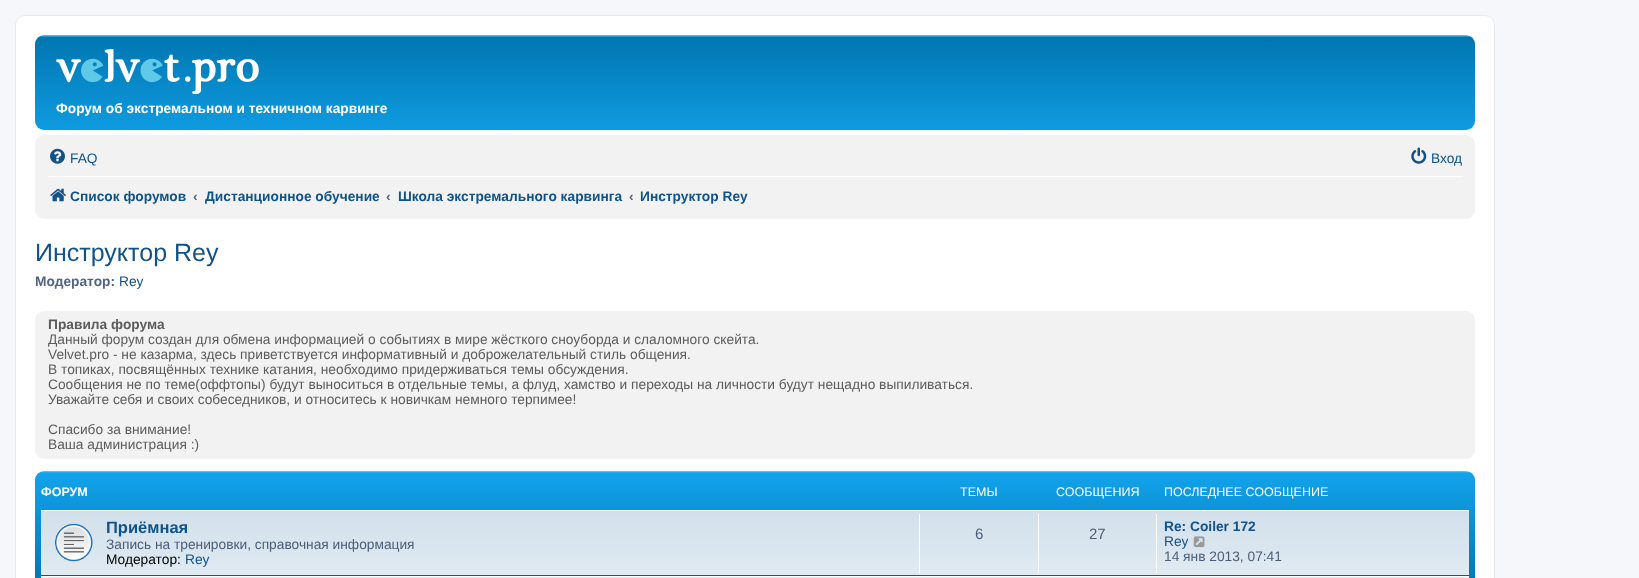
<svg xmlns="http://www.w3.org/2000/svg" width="1639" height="578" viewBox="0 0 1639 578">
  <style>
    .t1 { font: bold 13.75px Liberation Sans; fill: #fff; }
    .t2 { font: 13.75px Liberation Sans; fill: #105289; }
    .t3 { font: bold 13.75px Liberation Sans; fill: #105289; }
    .t4 { font: bold 13.75px Liberation Sans; fill: #536482; }
    .t5 { font: 25px Liberation Sans; fill: #105289; }
    .t6 { font: bold 13.75px Liberation Sans; fill: #5c5c5c; }
    .t7 { font: 13.75px Liberation Sans; fill: #5c5c5c; }
    .t8 { font: bold 12.5px Liberation Sans; fill: #fff; }
    .t9 { font: 12.5px Liberation Sans; fill: #fff; }
    .t10 { font: bold 16.5px Liberation Sans; fill: #105289; }
    .t11 { font: 13.75px Liberation Sans; fill: #4c5d77; }
    .t12 { font: 13.75px Liberation Sans; fill: #000; }
    .t13 { font: 15px Liberation Sans; fill: #4c5d77; }
  </style>
  <defs>
    <linearGradient id="g1" gradientUnits="userSpaceOnUse" x1="755" y1="35" x2="755" y2="150"><stop offset="0" stop-color="#6aceff"/><stop offset="0.02" stop-color="#0076b1"/><stop offset="1" stop-color="#12a3eb"/></linearGradient>
    <clipPath id="clip1"><rect x="205" y="181" width="174" height="30"/></clipPath>
    <linearGradient id="g2" gradientUnits="userSpaceOnUse" x1="755" y1="471" x2="755" y2="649"><stop offset="0" stop-color="#6aceff"/><stop offset="0.01" stop-color="#12a3eb"/><stop offset="0.65" stop-color="#0076b1"/><stop offset="1" stop-color="#0076b1"/></linearGradient>
    <linearGradient id="g3" gradientUnits="userSpaceOnUse" x1="755" y1="510" x2="755" y2="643"><stop offset="0" stop-color="#d2e0eb"/><stop offset="1" stop-color="#eef5f9"/></linearGradient>
  </defs>
  <rect width="100%" height="100%" fill="#f5f7fa"/>
  <rect x="15.5" y="15.5" width="1479" height="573" rx="9.5" fill="#fff" stroke="#e6e9ed"/>
  <rect x="35" y="35" width="1440" height="95" rx="9" fill="url(#g1)"/>
  <image x="56" y="49" width="203" height="45" href="images/1.png"/>
  <text x="56" y="113" class="t1">Форум об экстремальном и техничном карвинге</text>
  <rect x="35" y="135" width="1440" height="84" rx="9" fill="#f2f2f2"/>
  <image x="50" y="148" width="15" height="16" href="images/2.png"/>
  <text x="70" y="163" class="t2">FAQ</text>
  <image x="1411" y="147" width="16" height="17" href="images/3.png"/>
  <text x="1431" y="163" class="t2">Вход</text>
  <rect x="48" y="176" width="1415" height="1" fill="#fff"/>
  <image x="50" y="188" width="16" height="14" href="images/4.png"/>
  <text x="70" y="201" class="t3">Список форумов</text>
  <text x="193" y="201" class="t4">‹</text>
  <g clip-path="url(#clip1)">
    <text x="205" y="201" class="t3">Дистанционное обучение</text>
  </g>
  <text x="386" y="201" class="t4">‹</text>
  <text x="398" y="201" class="t3">Школа экстремального карвинга</text>
  <text x="629" y="201" class="t4">‹</text>
  <text x="640" y="201" class="t3">Инструктор Rey</text>
  <text x="35" y="261" class="t5">Инструктор Rey</text>
  <text x="35" y="286" class="t4">Модератор:</text>
  <text x="119" y="286" class="t2">Rey</text>
  <rect x="35" y="311" width="1440" height="148" rx="9" fill="#f2f2f2"/>
  <text x="48" y="329" class="t6">Правила форума</text>
  <text x="48" y="344" class="t7">Данный форум создан для обмена информацией о событиях в мире жёсткого сноуборда и слаломного скейта.</text>
  <text x="48" y="359" class="t7">Velvet.pro - не казарма, здесь приветствуется информативный и доброжелательный стиль общения.</text>
  <text x="48" y="374" class="t7">В топиках, посвящённых технике катания, необходимо придерживаться темы обсуждения.</text>
  <text x="48" y="389" class="t7">Сообщения не по теме(оффтопы) будут выноситься в отдельные темы, а флуд, хамство и переходы на личности будут нещадно выпиливаться.</text>
  <text x="48" y="404" class="t7">Уважайте себя и своих собеседников, и относитесь к новичкам немного терпимее!</text>
  <text x="48" y="434" class="t7">Спасибо за внимание!</text>
  <text x="48" y="449" class="t7">Ваша администрация :)</text>
  <rect x="35" y="471" width="1440" height="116" rx="9" fill="url(#g2)"/>
  <text x="41" y="496" class="t8">ФОРУМ</text>
  <text x="960" y="496" class="t9">ТЕМЫ</text>
  <text x="1056" y="496" class="t9">СООБЩЕНИЯ</text>
  <text x="1164" y="496" class="t9">ПОСЛЕДНЕЕ СООБЩЕНИЕ</text>
  <rect x="41" y="511" width="1428" height="67" fill="url(#g3)"/>
  <rect x="41" y="510" width="1428" height="1" fill="#fff"/>
  <rect x="41" y="575" width="1428" height="1" fill="#00608f"/>
  <image x="55" y="523" width="38" height="39" href="images/5.png"/>
  <text x="106" y="533" class="t10">Приёмная</text>
  <text x="106" y="549" class="t11">Запись на тренировки, справочная информация</text>
  <text x="106" y="564" class="t12">Модератор:</text>
  <text x="185" y="564" class="t2">Rey</text>
  <rect x="919" y="514" width="1" height="59" fill="#fff"/>
  <text x="975" y="539" class="t13">6</text>
  <rect x="1038" y="514" width="1" height="59" fill="#fff"/>
  <text x="1089" y="539" class="t13">27</text>
  <rect x="1156" y="514" width="1" height="59" fill="#fff"/>
  <text x="1164" y="531" class="t3">Re: Coiler 172</text>
  <text x="1164" y="546" class="t2">Rey</text>
  <image x="1193" y="536" width="12" height="12" href="images/6.png"/>
  <text x="1164" y="561" class="t11">14 янв 2013, 07:41</text>
  <rect x="41" y="576" width="1428" height="1" fill="#fff"/>
</svg>
